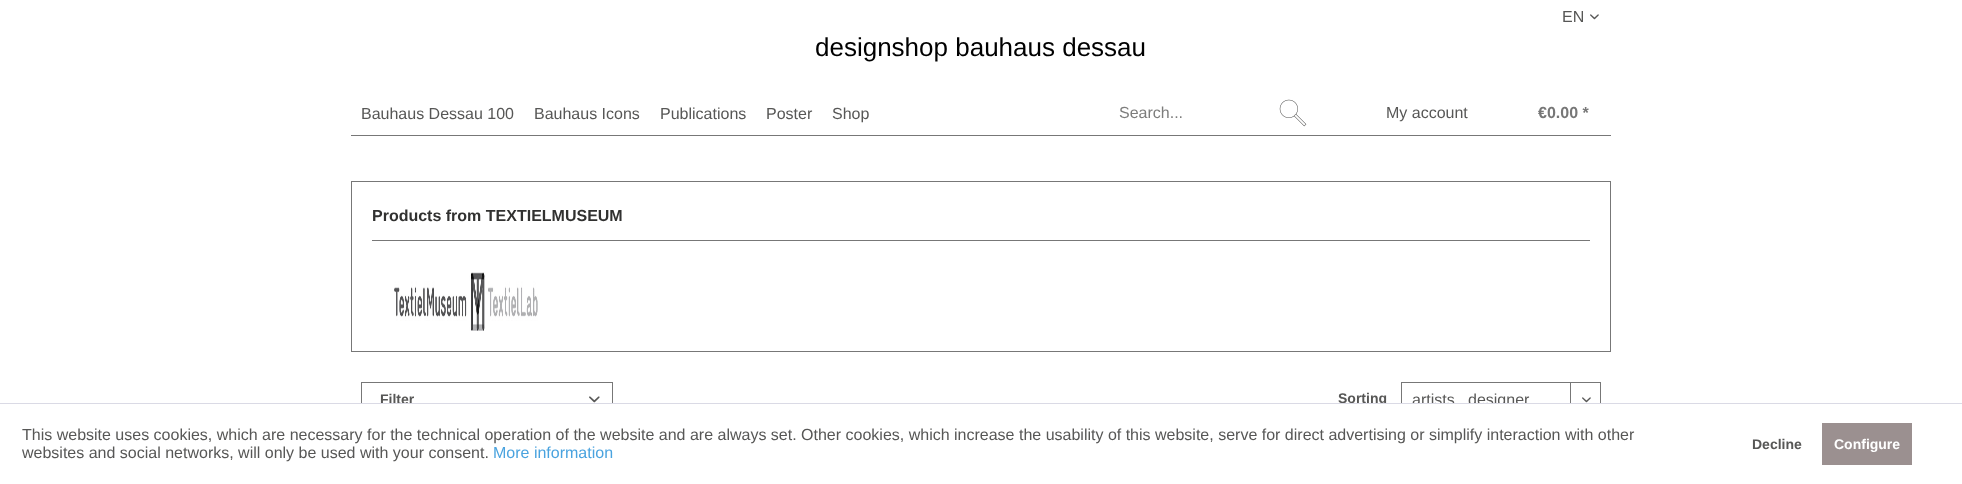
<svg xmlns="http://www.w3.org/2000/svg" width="1962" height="484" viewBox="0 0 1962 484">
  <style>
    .t1 { font: 16px Liberation Sans; fill: #575756; }
    .t2 { font: 26px Liberation Sans; fill: #000; }
    .t3 { font: 16px Liberation Sans; fill: #7d7d7c; }
    .t4 { font: bold 16px Liberation Sans; fill: #777; }
    .t5 { font: bold 16px Liberation Sans; fill: #313130; }
    .t6 { font: bold 14px Liberation Sans; fill: #575756; }
    .t7 { font: 16px Liberation Sans; fill: #4aa3df; }
    .t8 { font: bold 14px Liberation Sans; fill: #fff; }
  </style>
  <rect width="100%" height="100%" fill="#fff"/>
  <text x="1562" y="22" class="t1">EN</text>
  <image x="1590" y="14" width="9" height="6" href="images/1.png"/>
  <rect x="351" y="135" width="1260" height="1" fill="#777"/>
  <text x="815" y="56" class="t2">designshop bauhaus dessau</text>
  <text x="361" y="119" class="t1">Bauhaus Dessau 100</text>
  <text x="534" y="119" class="t1">Bauhaus Icons</text>
  <text x="660" y="119" class="t1">Publications</text>
  <text x="766" y="119" class="t1">Poster</text>
  <text x="832" y="119" class="t1">Shop</text>
  <text x="1119" y="118" class="t3">Search...</text>
  <image x="1279" y="99" width="28" height="28" href="images/2.png"/>
  <text x="1386" y="118" class="t1">My account</text>
  <text x="1538" y="118" class="t4">€0.00 *</text>
  <rect x="351.5" y="181.5" width="1259" height="170" fill="none" stroke="#777"/>
  <rect x="372" y="240" width="1218" height="1" fill="#777"/>
  <text x="372" y="221" class="t5">Products from TEXTIELMUSEUM</text>
  <image x="394" y="272" width="144" height="59" href="images/3.png"/>
  <rect x="361.5" y="382.5" width="251" height="33" fill="none" stroke="#777"/>
  <text x="380" y="404" class="t6">Filter</text>
  <image x="589" y="396" width="11" height="7" href="images/4.png"/>
  <text x="1338" y="403" class="t6">Sorting</text>
  <rect x="1401.5" y="382.5" width="199" height="33" fill="none" stroke="#777"/>
  <text x="1412" y="405" class="t1">artists . designer</text>
  <rect x="1570" y="383" width="1" height="20" fill="#777"/>
  <image x="1582" y="397" width="9" height="6" href="images/1.png"/>
  <rect x="361" y="404" width="1240" height="12" fill="#fff"/>
  <rect x="0" y="403" width="1962" height="1" fill="#dadae5"/>
  <text x="22" y="440" class="t1">This website uses cookies, which are necessary for the technical operation of the website and are always set. Other cookies, which increase the usability of this website, serve for direct advertising or simplify interaction with other</text>
  <text x="22" y="458" class="t1">websites and social networks, will only be used with your consent.</text>
  <text x="493" y="458" class="t7">More information</text>
  <text x="1752" y="449" class="t6">Decline</text>
  <rect x="1822" y="423" width="90" height="42" fill="#9b9090"/>
  <text x="1834" y="449" class="t8">Configure</text>
</svg>
